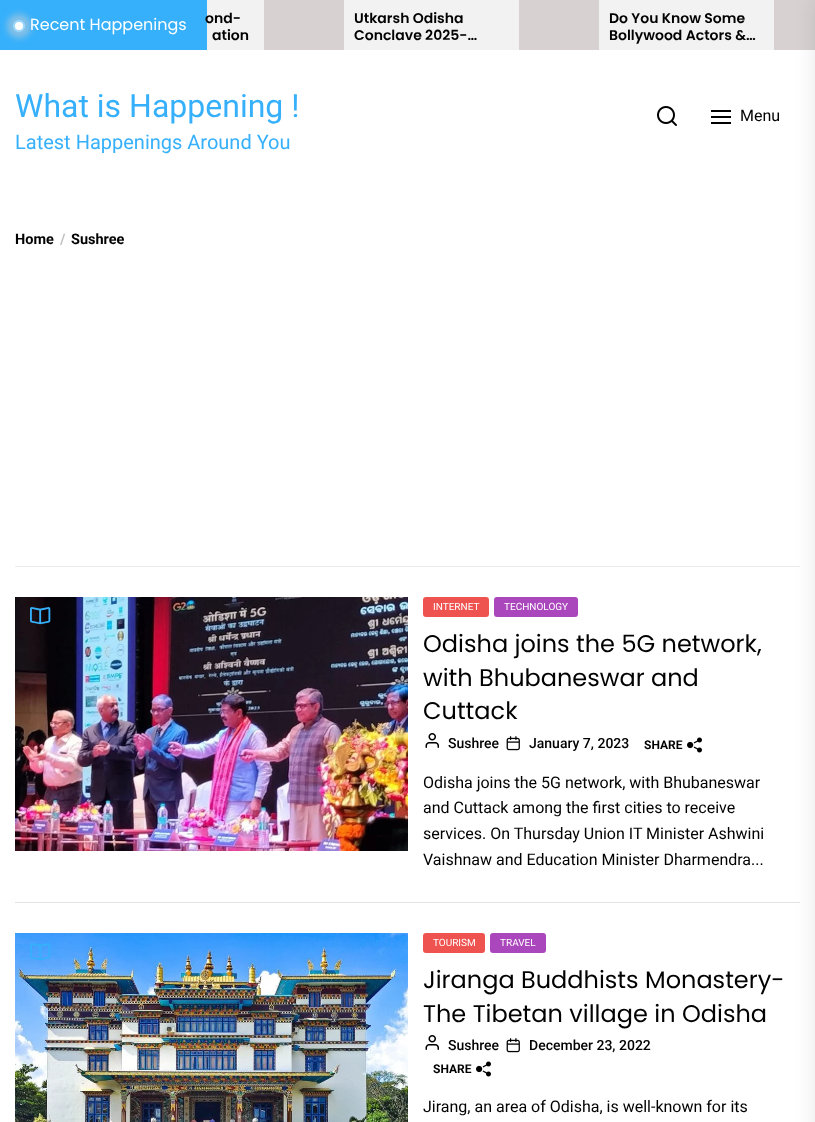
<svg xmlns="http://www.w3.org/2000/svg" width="815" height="1122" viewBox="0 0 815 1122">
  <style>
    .t1 { font: 16px Poppins; fill: #fff; }
    .t2 { font: 600 14px Poppins; fill: #010101; }
    .t3 { font: 32px Roboto; fill: #36b0fb; }
    .t4 { font: 20px Roboto; fill: #36b0fb; }
    .t5 { font: 16px Roboto; fill: #010101; }
    .t6 { font: bold 14.5px Roboto; fill: #010101; }
    .t7 { font: bold 14.5px Roboto; fill: #c2c2c2; }
    .t8 { font: 10px Roboto; fill: #fff; }
    .t9 { font: 24px Poppins; fill: #010101; }
    .t10 { font: 500 14px Roboto; fill: #010101; }
    .t11 { font: bold 12px Roboto; fill: #010101; }
  </style>
  <rect width="100%" height="100%" fill="#fff"/>
  <rect x="207" y="0" width="567" height="50" fill="#f2f2f2"/>
  <rect x="0" y="0" width="207" height="50" fill="#36b0fb"/>
  <rect x="7" y="14" width="24" height="24" rx="12" fill="#d7d1d180" filter="blur(3px)"/>
  <circle cx="19" cy="26" r="6" fill="#9bd8fd"/>
  <text x="30" y="30" class="t1">Recent Happenings</text>
  <circle cx="19" cy="26" r="4" fill="#fff"/>
  <text x="205" y="23" class="t2">ond-</text>
  <text x="212" y="40" class="t2">ation</text>
  <rect x="264" y="0" width="80" height="50" fill="#d7d1d1"/>
  <text x="354" y="23" class="t2">Utkarsh Odisha</text>
  <text x="354" y="40" class="t2">Conclave 2025-…</text>
  <rect x="519" y="0" width="80" height="50" fill="#d7d1d1"/>
  <text x="609" y="23" class="t2">Do You Know Some</text>
  <text x="609" y="40" class="t2">Bollywood Actors &amp;…</text>
  <rect x="774" y="0" width="41" height="50" fill="#d7d1d1"/>
  <text x="15" y="117" class="t3">What is Happening !</text>
  <text x="15" y="149" class="t4">Latest Happenings Around You</text>
  <image x="657" y="106" width="20" height="20" href="images/1.png"/>
  <rect x="711" y="110" width="20" height="2" fill="#000"/>
  <rect x="711" y="116" width="20" height="2" fill="#000"/>
  <rect x="711" y="122" width="20" height="2" fill="#000"/>
  <text x="740" y="121" class="t5">Menu</text>
  <rect x="15" y="566" width="785" height="1" fill="#eeebeb"/>
  <text x="15" y="244" class="t6">Home</text>
  <text x="60" y="244" class="t7">/</text>
  <text x="71" y="244" class="t6">Sushree</text>
  <image x="15" y="597" width="393" height="254" href="images/2.png"/>
  <image x="30" y="607" width="21" height="18" href="images/3.png"/>
  <rect x="423" y="597" width="66" height="20" rx="3" fill="#ef5350"/>
  <text x="433" y="610" class="t8">INTERNET</text>
  <rect x="494" y="597" width="84" height="20" rx="3" fill="#ab47bc"/>
  <text x="504" y="610" class="t8">TECHNOLOGY</text>
  <text x="423" y="652" class="t9">Odisha joins the 5G network,</text>
  <text x="423" y="686" class="t9">with Bhubaneswar and</text>
  <text x="423" y="719" class="t9">Cuttack</text>
  <image x="425" y="733" width="14" height="15" href="images/4.png"/>
  <text x="448" y="748" class="t10">Sushree</text>
  <image x="506" y="736" width="14" height="15" href="images/5.png"/>
  <text x="529" y="748" class="t10">January 7, 2023</text>
  <text x="644" y="749" class="t11">SHARE</text>
  <image x="687" y="737" width="15" height="16" href="images/6.png"/>
  <text x="423" y="788" class="t5">Odisha joins the 5G network, with Bhubaneswar</text>
  <text x="423" y="813" class="t5">and Cuttack among the first cities to receive</text>
  <text x="423" y="839" class="t5">services. On Thursday Union IT Minister Ashwini</text>
  <text x="423" y="865" class="t5">Vaishnaw and Education Minister Dharmendra...</text>
  <rect x="15" y="902" width="785" height="1" fill="#e6e2e2"/>
  <image x="15" y="933" width="393" height="189" href="images/7.png"/>
  <image x="30" y="943" width="21" height="18" href="images/8.png"/>
  <rect x="423" y="933" width="62" height="20" rx="3" fill="#ef5350"/>
  <text x="433" y="946" class="t8">TOURISM</text>
  <rect x="490" y="933" width="56" height="20" rx="3" fill="#ab47bc"/>
  <text x="500" y="946" class="t8">TRAVEL</text>
  <text x="423" y="988" class="t9">Jiranga Buddhists Monastery-</text>
  <text x="423" y="1022" class="t9">The Tibetan village in Odisha</text>
  <image x="425" y="1035" width="14" height="15" href="images/4.png"/>
  <text x="448" y="1050" class="t10">Sushree</text>
  <image x="506" y="1038" width="14" height="15" href="images/5.png"/>
  <text x="529" y="1050" class="t10">December 23, 2022</text>
  <text x="433" y="1073" class="t11">SHARE</text>
  <image x="476" y="1061" width="15" height="16" href="images/6.png"/>
  <text x="423" y="1112" class="t5">Jirang, an area of Odisha, is well-known for its</text>
  <rect x="815" y="0" width="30" height="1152" fill="#0000001a" filter="blur(10px)"/>
</svg>
